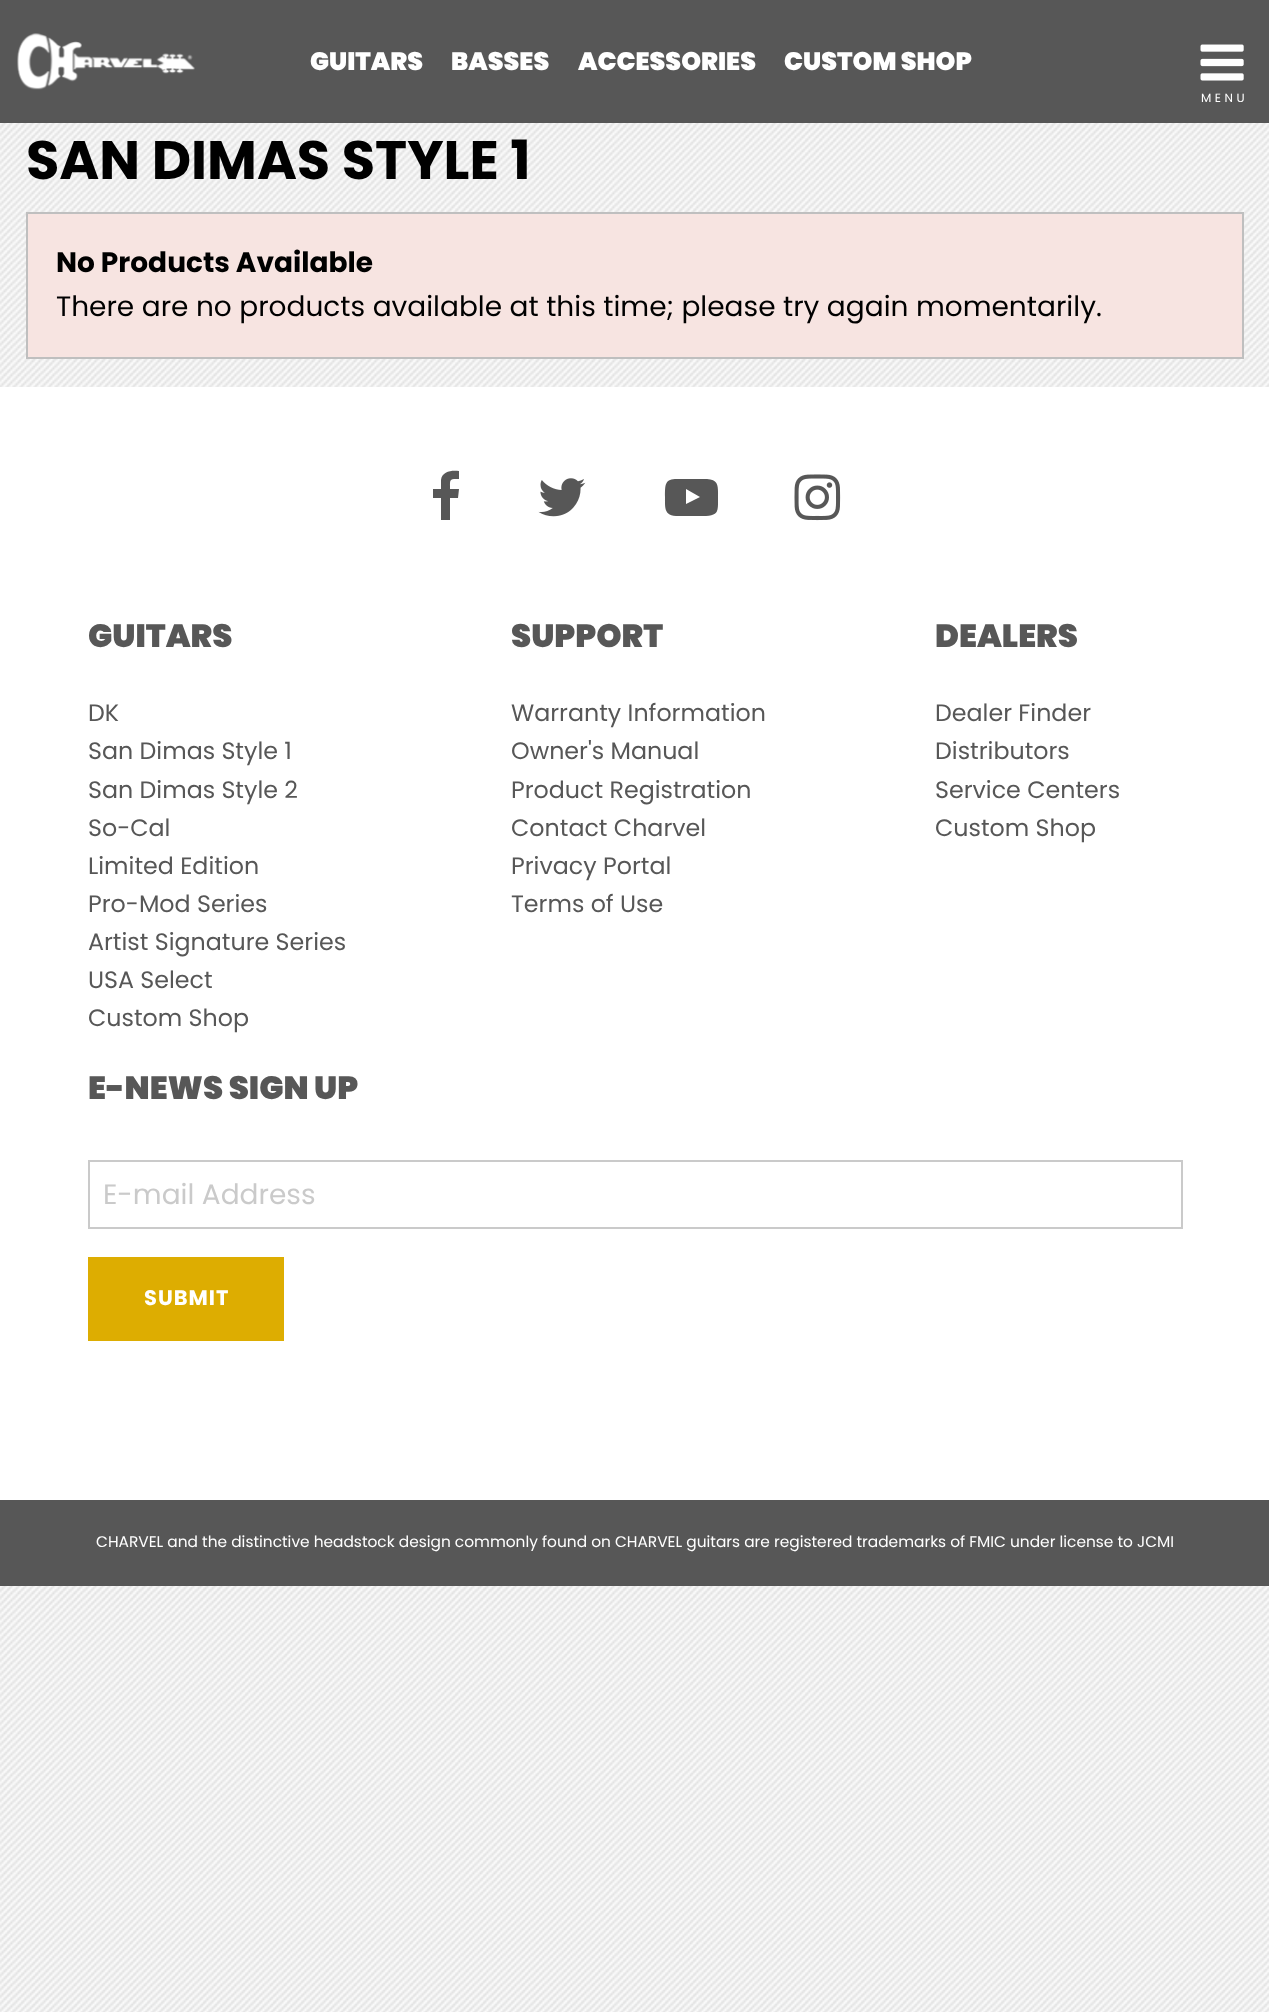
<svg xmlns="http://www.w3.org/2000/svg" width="1269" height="2012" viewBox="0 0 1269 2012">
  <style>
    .t1 { font: 900 25.25px Poppins; fill: #fff; }
    .t2 { font: 12px Poppins; letter-spacing: 3.5px; fill: #fff; }
    .t3 { font: bold 54.25px Poppins; fill: #000; }
    .t4 { font: bold 28px Poppins; fill: #000; }
    .t5 { font: 28px Poppins; fill: #000; }
    .t6 { font: 900 32.25px Poppins; fill: #575757; }
    .t7 { font: 23.75px Poppins; fill: #575757; }
    .t8 { font: 28px Poppins; fill: #cacaca; }
    .t9 { font: bold 21px Poppins; letter-spacing: 1px; fill: #fff; }
    .t10 { font: 15.4px Poppins; fill: #fff; }
  </style>
  <rect width="100%" height="100%" fill="#fff"/>
  <image x="0" y="123" width="1269" height="1889" href="images/1.png"/>
  <rect x="0" y="0" width="1269" height="123" fill="#575757"/>
  <image x="17" y="33" width="178" height="57" href="images/2.png"/>
  <text x="310" y="70" class="t1">GUITARS</text>
  <text x="451" y="70" class="t1">BASSES</text>
  <text x="578" y="70" class="t1">ACCESSORIES</text>
  <text x="784" y="70" class="t1">CUSTOM SHOP</text>
  <image x="1200" y="44" width="44" height="37" href="images/3.png"/>
  <text x="1201" y="102" class="t2">MENU</text>
  <text x="26" y="179" class="t3">SAN DIMAS STYLE 1</text>
  <rect x="27" y="213" width="1216" height="145" fill="#f7e4e1" stroke="#bfbfbf" stroke-width="2"/>
  <text x="56" y="272" class="t4">No Products Available</text>
  <text x="56" y="316" class="t5">There are no products available at this time; please try again momentarily.</text>
  <rect x="0" y="387" width="1269" height="1113" fill="#fff"/>
  <path d="M459 471V479C449 479 450 479 450 489H459L458 498H450V520H441V498H433V489H441V480C442 471 452 470 459 471Z" fill="#575757"/>
  <image x="538" y="478" width="48" height="39" href="images/4.png"/>
  <path d="M686 504L700 497L686 489ZM692 479H707C719 480 718 486 718 497C718 511 719 515 706 516H676C664 515 665 508 665 497C665 484 665 479 677 479Z" fill="#575757"/>
  <image x="794" y="474" width="47" height="47" href="images/5.png"/>
  <text x="88" y="647" class="t6">GUITARS</text>
  <text x="88" y="721" class="t7">DK</text>
  <text x="88" y="759" class="t7">San Dimas Style 1</text>
  <text x="88" y="798" class="t7">San Dimas Style 2</text>
  <text x="88" y="836" class="t7">So-Cal</text>
  <text x="88" y="874" class="t7">Limited Edition</text>
  <text x="88" y="912" class="t7">Pro-Mod Series</text>
  <text x="88" y="950" class="t7">Artist Signature Series</text>
  <text x="88" y="988" class="t7">USA Select</text>
  <text x="88" y="1026" class="t7">Custom Shop</text>
  <text x="511" y="647" class="t6">SUPPORT</text>
  <text x="511" y="721" class="t7">Warranty Information</text>
  <text x="511" y="759" class="t7">Owner's Manual</text>
  <text x="511" y="798" class="t7">Product Registration</text>
  <text x="511" y="836" class="t7">Contact Charvel</text>
  <text x="511" y="874" class="t7">Privacy Portal</text>
  <text x="511" y="912" class="t7">Terms of Use</text>
  <text x="935" y="647" class="t6">DEALERS</text>
  <text x="935" y="721" class="t7">Dealer Finder</text>
  <text x="935" y="759" class="t7">Distributors</text>
  <text x="935" y="798" class="t7">Service Centers</text>
  <text x="935" y="836" class="t7">Custom Shop</text>
  <text x="88" y="1099" class="t6">E-NEWS SIGN UP</text>
  <rect x="89" y="1161" width="1093" height="67" fill="none" stroke="#cacaca" stroke-width="2"/>
  <text x="103" y="1204" class="t8">E-mail Address</text>
  <rect x="88" y="1257" width="196" height="84" fill="#ddad01"/>
  <text x="144" y="1305" class="t9">SUBMIT</text>
  <rect x="0" y="1500" width="1269" height="86" fill="#575757"/>
  <text x="96" y="1547" class="t10">CHARVEL and the distinctive headstock design commonly found on CHARVEL guitars are registered trademarks of FMIC under license to JCMI</text>
</svg>
